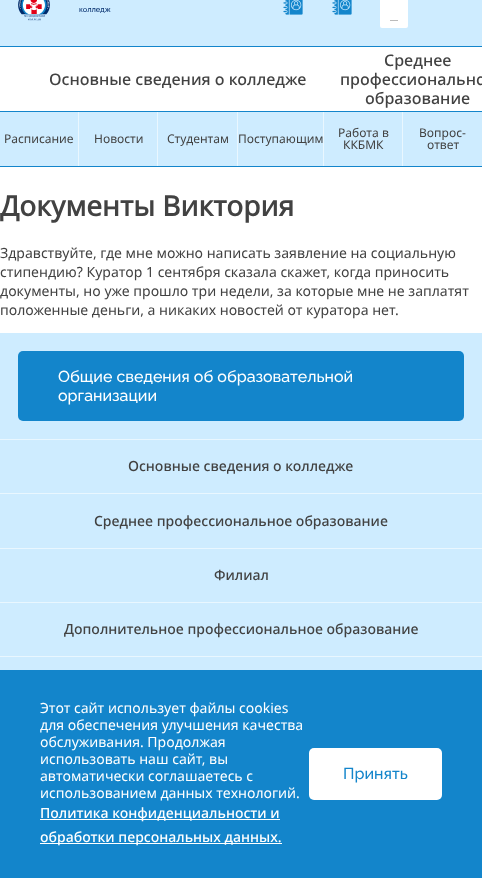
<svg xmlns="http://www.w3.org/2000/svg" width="482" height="878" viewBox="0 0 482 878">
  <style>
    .t1 { font: 500 7.5px Raleway; fill: #002b6b; }
    .t2 { font: 500 16px Noto Sans; fill: #424242; }
    .t3 { font: 12px Noto Sans; fill: #424242; }
    .t4 { font: bold 28px Noto Sans; fill: #424242; }
    .t5 { font: 14px Noto Sans; fill: #424242; }
    .t6 { font: 500 16px Raleway; fill: #fff; }
    .t7 { font: 500 14px Noto Sans; fill: #424242; }
    .t8 { font: 14px Noto Sans; fill: #fff; }
    .t9 { font: 500 14px Noto Sans; fill: #fff; }
    .t10 { font: 500 16px Raleway; fill: #1385cb; }
  </style>
  <rect width="100%" height="100%" fill="#fff"/>
  <rect x="0" y="0" width="482" height="46" fill="#ceecff"/>
  <rect x="0" y="46" width="482" height="1" fill="#1385cb"/>
  <image x="18" y="0" width="32" height="21" href="images/1.png"/>
  <text x="79" y="12" class="t1">колледж</text>
  <image x="283" y="0" width="20" height="15" href="images/2.png"/>
  <image x="332" y="0" width="20" height="15" href="images/2.png"/>
  <rect x="380" y="-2" width="28" height="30" rx="2" fill="#fff"/>
  <rect x="390" y="20" width="8" height="1" fill="#bbb"/>
  <text x="49" y="85" class="t2">Основные сведения о колледже</text>
  <text x="384" y="66" class="t2">Среднее</text>
  <text x="340" y="85" class="t2">профессионально</text>
  <text x="365" y="104" class="t2">образование</text>
  <rect x="0" y="112" width="482" height="54" fill="#ceecff"/>
  <rect x="0" y="111" width="482" height="1" fill="#1385cb"/>
  <rect x="0" y="166" width="482" height="1" fill="#1385cb"/>
  <rect x="78" y="112" width="1" height="54" fill="#e9f7ff"/>
  <text x="4" y="143" class="t3">Расписание</text>
  <rect x="157" y="112" width="1" height="54" fill="#e9f7ff"/>
  <text x="94" y="143" class="t3">Новости</text>
  <rect x="237" y="112" width="1" height="54" fill="#e9f7ff"/>
  <text x="167" y="143" class="t3">Студентам</text>
  <rect x="323" y="112" width="1" height="54" fill="#e9f7ff"/>
  <text x="238" y="143" class="t3">Поступающим</text>
  <rect x="402" y="112" width="1" height="54" fill="#e9f7ff"/>
  <text x="338" y="137" class="t3">Работа в</text>
  <text x="343" y="149" class="t3">ККБМК</text>
  <text x="419" y="137" class="t3">Вопрос-</text>
  <text x="427" y="149" class="t3">ответ</text>
  <text x="0" y="216" class="t4">Документы Виктория</text>
  <text x="0" y="258" class="t5">Здравствуйте, где мне можно написать заявление на социальную</text>
  <text x="0" y="277" class="t5">стипендию? Куратор 1 сентября сказала скажет, когда приносить</text>
  <text x="0" y="296" class="t5">документы, но уже прошло три недели, за которые мне не заплатят</text>
  <text x="0" y="315" class="t5">положенные деньги, а никаких новостей от куратора нет.</text>
  <rect x="0" y="333" width="482" height="337" fill="#ceecff"/>
  <rect x="18" y="351" width="446" height="70" rx="5" fill="#1385cb"/>
  <text x="58" y="382" class="t6">Общие сведения об образовательной</text>
  <text x="58" y="401" class="t6">организации</text>
  <rect x="0" y="439" width="482" height="1" fill="#e9f7ff"/>
  <rect x="0" y="493" width="482" height="1" fill="#e9f7ff"/>
  <text x="128" y="471" class="t7">Основные сведения о колледже</text>
  <rect x="0" y="548" width="482" height="1" fill="#e9f7ff"/>
  <text x="94" y="526" class="t7">Среднее профессиональное образование</text>
  <rect x="0" y="602" width="482" height="1" fill="#e9f7ff"/>
  <text x="214" y="580" class="t7">Филиал</text>
  <rect x="0" y="656" width="482" height="1" fill="#e9f7ff"/>
  <text x="64" y="634" class="t7">Дополнительное профессиональное образование</text>
  <rect x="0" y="670" width="482" height="208" fill="#1385cb"/>
  <text x="40" y="713" class="t8">Этот сайт использует файлы cookies</text>
  <text x="40" y="730" class="t8">для обеспечения улучшения качества</text>
  <text x="40" y="747" class="t8">обслуживания. Продолжая</text>
  <text x="40" y="764" class="t8">использовать наш сайт, вы</text>
  <text x="40" y="781" class="t8">автоматически соглашаетесь с</text>
  <text x="40" y="798" class="t8">использованием данных технологий.</text>
  <rect x="40" y="819" width="240" height="1" fill="#fff"/>
  <text x="40" y="818" class="t9">Политика конфиденциальности и</text>
  <rect x="40" y="843" width="242" height="1" fill="#fff"/>
  <text x="40" y="842" class="t9">обработки персональных данных.</text>
  <rect x="309" y="748" width="133" height="52" rx="5" fill="#fff"/>
  <text x="343" y="779" class="t10">Принять</text>
</svg>
